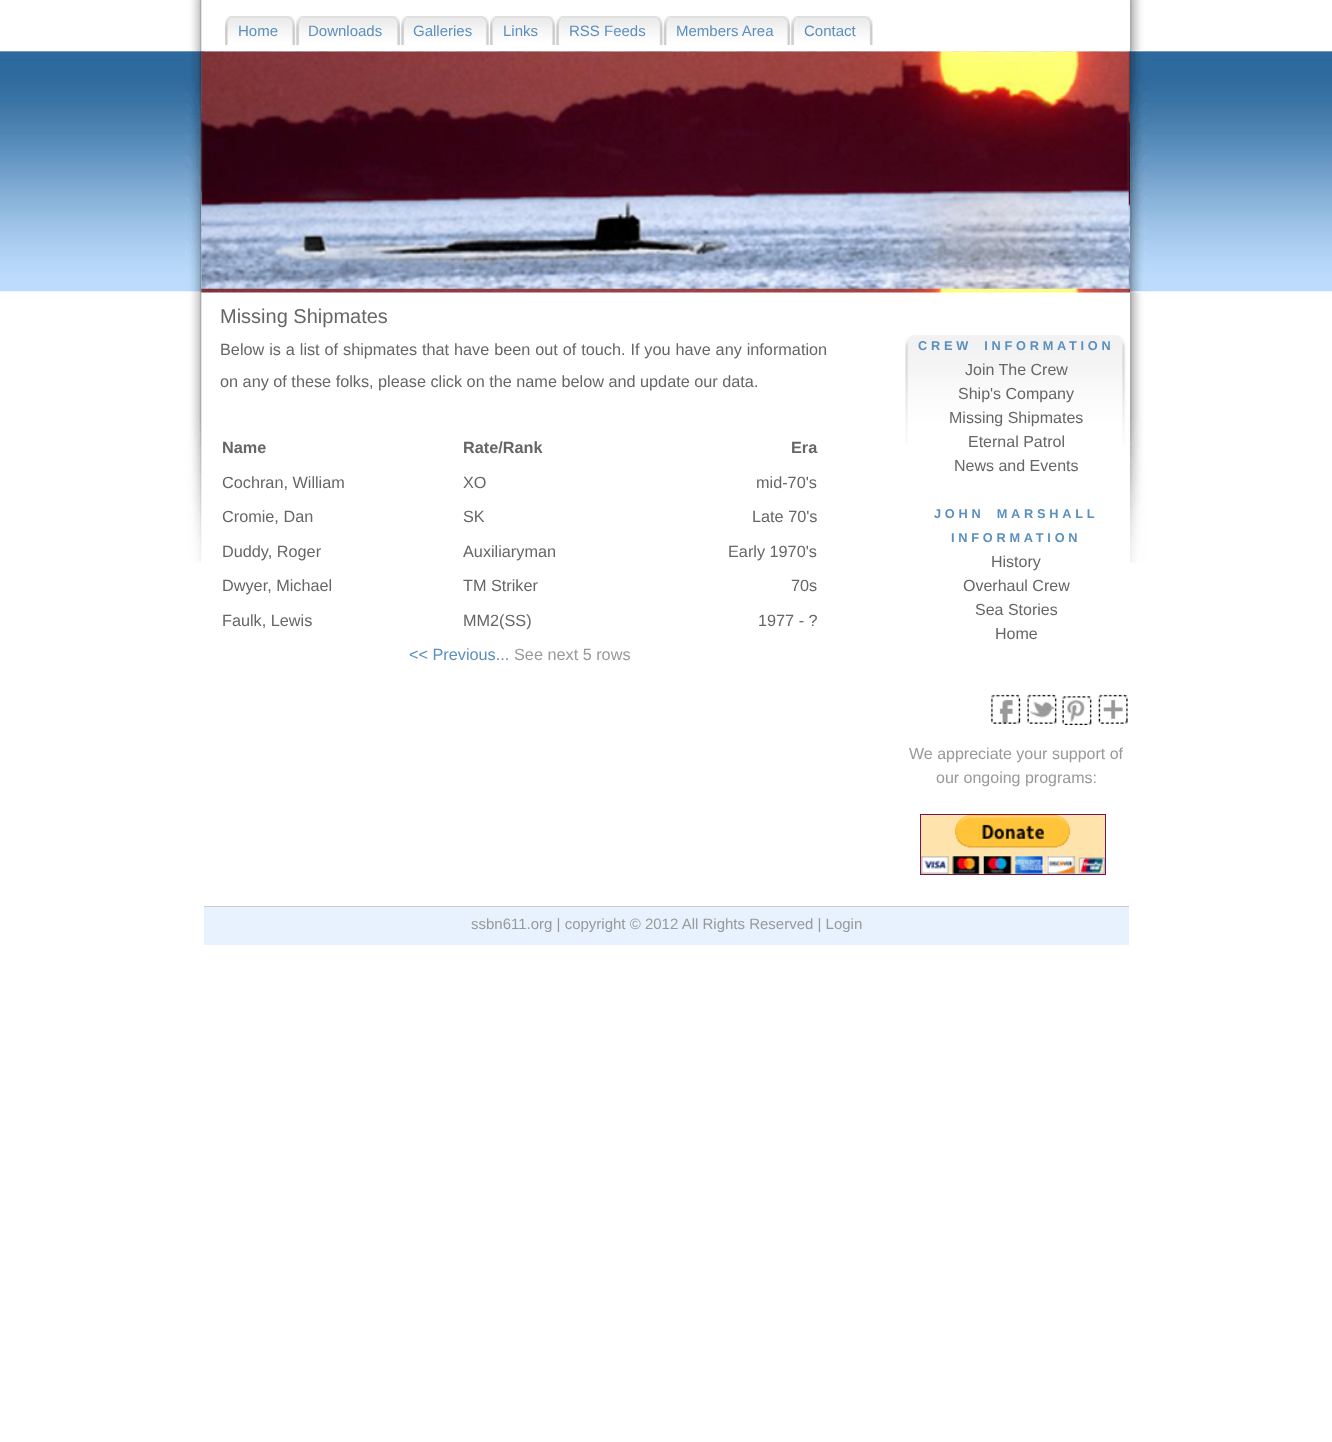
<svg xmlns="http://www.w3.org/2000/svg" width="1332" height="1442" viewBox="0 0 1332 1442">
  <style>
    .t1 { font: 15px Liberation Sans; fill: #5b8fbe; }
    .t2 { font: 20px Liberation Sans; fill: #666; }
    .t3 { font: 16.25px Liberation Sans; fill: #666; }
    .t4 { font: bold 16.25px Liberation Sans; fill: #666; }
    .t5 { font: 16.25px Liberation Sans; fill: #5b8fbe; }
    .t6 { font: 16.25px Liberation Sans; fill: #999; }
    .t7 { font: bold 12.75px Liberation Sans; letter-spacing: 3.75px; fill: #5b8fbe; }
    .t8 { font: 16px Liberation Sans; fill: #666; }
    .t9 { font: 16px Liberation Sans; fill: #999; }
    .t10 { font: 15px Liberation Sans; fill: #999; }
  </style>
  <rect width="100%" height="100%" fill="#fff"/>
  <image x="0" y="51" width="1332" height="241" href="images/1.png"/>
  <image x="185" y="0" width="963" height="563" href="images/2.png"/>
  <rect x="204" y="51" width="925" height="241" fill="#fff"/>
  <image x="225" y="16" width="5" height="29" href="images/3.png"/>
  <image x="230" y="16" width="66" height="29" href="images/4.png"/>
  <text x="238" y="36" class="t1">Home</text>
  <image x="296" y="16" width="6" height="29" href="images/5.png"/>
  <image x="301" y="16" width="100" height="29" href="images/6.png"/>
  <text x="308" y="36" class="t1">Downloads</text>
  <image x="401" y="16" width="6" height="29" href="images/5.png"/>
  <image x="406" y="16" width="83" height="29" href="images/7.png"/>
  <text x="413" y="36" class="t1">Galleries</text>
  <image x="490" y="16" width="5" height="29" href="images/8.png"/>
  <image x="495" y="16" width="61" height="29" href="images/9.png"/>
  <text x="503" y="36" class="t1">Links</text>
  <image x="556" y="16" width="6" height="29" href="images/5.png"/>
  <image x="561" y="16" width="102" height="29" href="images/10.png"/>
  <text x="569" y="36" class="t1">RSS Feeds</text>
  <image x="663" y="16" width="6" height="29" href="images/11.png"/>
  <image x="668" y="16" width="123" height="29" href="images/12.png"/>
  <text x="676" y="36" class="t1">Members Area</text>
  <image x="791" y="16" width="6" height="29" href="images/5.png"/>
  <image x="796" y="16" width="77" height="29" href="images/13.png"/>
  <text x="804" y="36" class="t1">Contact</text>
  <image x="201" y="51" width="929" height="242" href="images/14.png"/>
  <text x="220" y="323" class="t2">Missing Shipmates</text>
  <text x="220" y="355" word-spacing="0.4" class="t3">Below is a list of shipmates that have been out of touch. If you have any information</text>
  <text x="220" y="387" class="t3">on any of these folks, please click on the name below and update our data.</text>
  <text x="222" y="453" class="t4">Name</text>
  <text x="463" y="453" class="t4">Rate/Rank</text>
  <text x="791" y="453" class="t4">Era</text>
  <text x="222" y="488" class="t3">Cochran, William</text>
  <text x="463" y="488" class="t3">XO</text>
  <text x="756" y="488" class="t3">mid-70's</text>
  <text x="222" y="522" class="t3">Cromie, Dan</text>
  <text x="463" y="522" class="t3">SK</text>
  <text x="752" y="522" class="t3">Late 70's</text>
  <text x="222" y="557" class="t3">Duddy, Roger</text>
  <text x="463" y="557" class="t3">Auxiliaryman</text>
  <text x="728" y="557" class="t3">Early 1970's</text>
  <text x="222" y="591" class="t3">Dwyer, Michael</text>
  <text x="463" y="591" class="t3">TM Striker</text>
  <text x="791" y="591" class="t3">70s</text>
  <text x="222" y="626" class="t3">Faulk, Lewis</text>
  <text x="463" y="626" class="t3">MM2(SS)</text>
  <text x="758" y="626" class="t3">1977 - ?</text>
  <text x="409" y="660" class="t5">&lt;&lt; Previous...</text>
  <text x="514" y="660" class="t6">See next 5 rows</text>
  <image x="905" y="335" width="221" height="111" href="images/15.png"/>
  <text x="918" y="350" word-spacing="5" class="t7">CREW INFORMATION</text>
  <text x="965" y="375" class="t8">Join The Crew</text>
  <text x="958" y="399" class="t8">Ship's Company</text>
  <text x="949" y="423" class="t8">Missing Shipmates</text>
  <text x="968" y="447" class="t8">Eternal Patrol</text>
  <text x="954" y="471" class="t8">News and Events</text>
  <text x="934" y="518" word-spacing="5" class="t7">JOHN MARSHALL</text>
  <text x="951" y="542" class="t7">INFORMATION</text>
  <text x="991" y="567" class="t8">History</text>
  <text x="963" y="591" class="t8">Overhaul Crew</text>
  <text x="975" y="615" class="t8">Sea Stories</text>
  <text x="995" y="639" class="t8">Home</text>
  <image x="991" y="694" width="30" height="30" href="images/16.png"/>
  <image x="1027" y="694" width="30" height="30" href="images/17.png"/>
  <image x="1062" y="696" width="30" height="29" href="images/18.png"/>
  <image x="1098" y="694" width="30" height="30" href="images/19.png"/>
  <text x="909" y="759" class="t9">We appreciate your support of</text>
  <text x="936" y="783" class="t9">our ongoing programs:</text>
  <rect x="920.5" y="814.5" width="185" height="60" fill="#fee3ad" stroke="#781351"/>
  <image x="921" y="815" width="184" height="59" href="images/20.png"/>
  <rect x="204" y="907" width="925" height="38" fill="#e7f2fe"/>
  <rect x="204" y="906" width="925" height="1" fill="#ccc"/>
  <text x="471" y="929" class="t10">ssbn611.org | copyright © 2012 All Rights Reserved | Login</text>
</svg>
